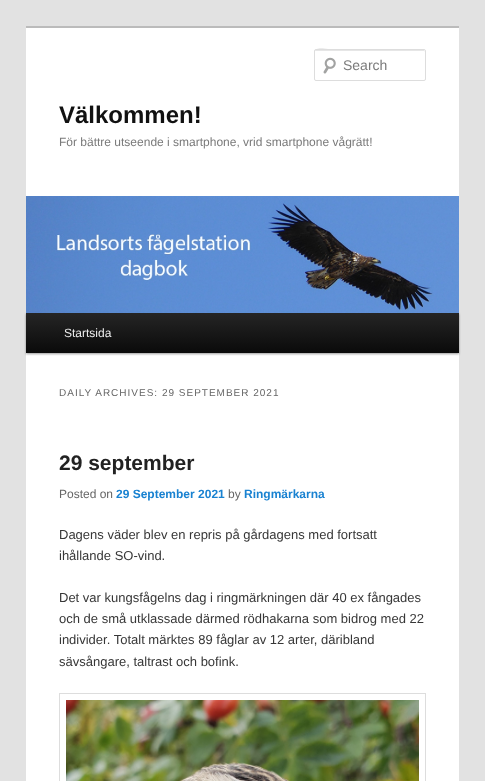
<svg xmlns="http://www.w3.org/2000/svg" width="485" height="781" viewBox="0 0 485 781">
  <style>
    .t1 { font: 14px Liberation Sans; fill: #7a7a7a; }
    .t2 { font: bold 24px Liberation Sans; fill: #111; }
    .t3 { font: 12px Liberation Sans; fill: #7a7a7a; }
    .t4 { font: 12px Liberation Sans; fill: #eee; }
    .t5 { font: 10px Liberation Sans; letter-spacing: 1px; fill: #666; }
    .t6 { font: bold 21px Liberation Sans; fill: #222; }
    .t7 { font: 12px Liberation Sans; fill: #666; }
    .t8 { font: bold 12px Liberation Sans; fill: #1982d1; }
    .t9 { font: 13px Liberation Sans; fill: #373737; }
  </style>
  <defs>
    <linearGradient id="g1" gradientUnits="userSpaceOnUse" x1="243" y1="313" x2="243" y2="353"><stop offset="0" stop-color="#252525"/><stop offset="1" stop-color="#0a0a0a"/></linearGradient>
  </defs>
  <rect width="100%" height="100%" fill="#e2e2e2"/>
  <rect x="26" y="28" width="433" height="753" fill="#fff"/>
  <rect x="26" y="26" width="433" height="2" fill="#bbb"/>
  <image x="323" y="57" width="13" height="17" href="images/1.png"/>
  <path d="M316 51H425V52L424 50H334C330 50 315 45 315 52C315 51 315 51 316 51Z" fill="#e6e6e6"/>
  <rect x="314.5" y="49.5" width="111" height="31" rx="1.5" fill="none" stroke="#ddd"/>
  <text x="343" y="70" class="t1">Search</text>
  <text x="59" y="123" class="t2">Välkommen!</text>
  <text x="59" y="146" class="t3">För bättre utseende i smartphone, vrid smartphone vågrätt!</text>
  <rect x="26" y="314" width="433" height="40" fill="#00000066" filter="blur(1px)"/>
  <image x="26" y="196" width="433" height="117" href="images/2.png"/>
  <rect x="26" y="313" width="433" height="40" fill="url(#g1)"/>
  <text x="64" y="337" class="t4">Startsida</text>
  <text x="59" y="396" class="t5">DAILY ARCHIVES: 29 SEPTEMBER 2021</text>
  <text x="59" y="470" class="t6">29 september</text>
  <text x="59" y="498" class="t7">Posted on</text>
  <text x="116" y="498" class="t8">29 September 2021</text>
  <text x="228" y="498" class="t7">by</text>
  <text x="244" y="498" class="t8">Ringmärkarna</text>
  <text x="59" y="539" class="t9">Dagens väder blev en repris på gårdagens med fortsatt</text>
  <text x="59" y="560" class="t9">ihållande SO-vind.</text>
  <text x="59" y="602" class="t9">Det var kungsfågelns dag i ringmärkningen där 40 ex fångades</text>
  <text x="59" y="623" class="t9">och de små utklassade därmed rödhakarna som bidrog med 22</text>
  <text x="59" y="644" class="t9">individer. Totalt märktes 89 fåglar av 12 arter, däribland</text>
  <text x="59" y="666" class="t9">sävsångare, taltrast och bofink.</text>
  <rect x="59.5" y="693.5" width="366" height="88" fill="none" stroke="#ddd"/>
  <image x="66" y="700" width="353" height="81" href="images/3.png"/>
</svg>
